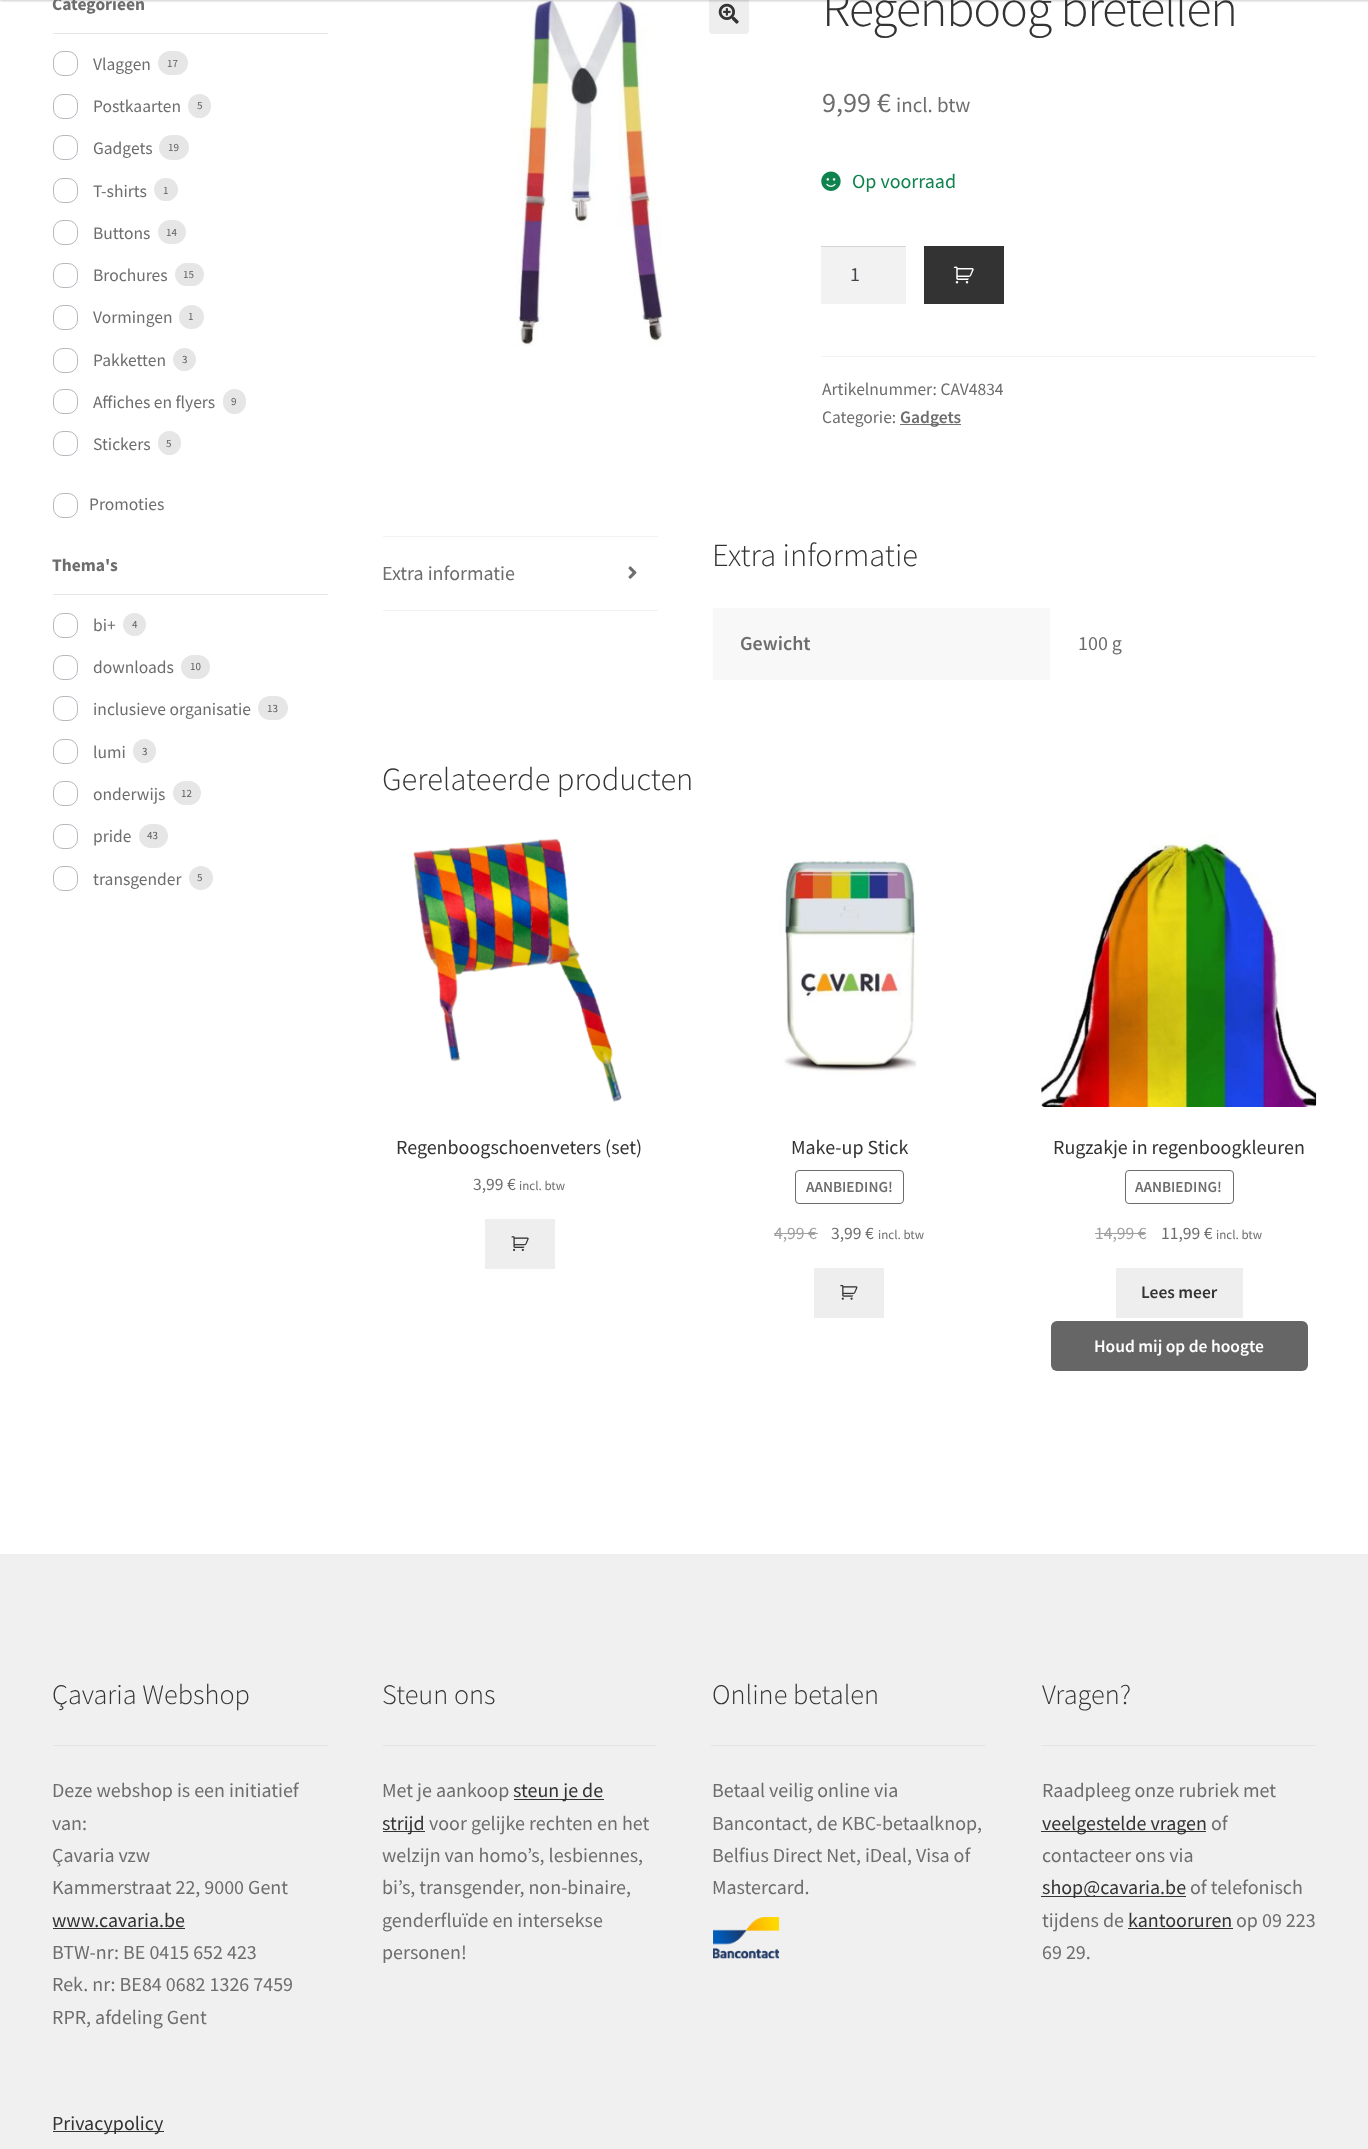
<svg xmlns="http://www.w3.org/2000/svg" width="1368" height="2149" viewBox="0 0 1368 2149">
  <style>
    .t1 { font: bold 17.5px Source Sans Pro; fill: #6d6d6d; }
    .t2 { font: 17.5px Source Sans Pro; fill: #6d6d6d; }
    .t3 { font: 11px Source Sans Pro; fill: #5f5f5f; }
    .t4 { font: 300 52.25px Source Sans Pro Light; letter-spacing: -1.25px; fill: #333; }
    .t5 { font: 28.25px Source Sans Pro; fill: #6d6d6d; }
    .t6 { font: 21px Source Sans Pro; fill: #6d6d6d; }
    .t7 { font: 20px Source Sans Pro; fill: #0f834d; }
    .t8 { font: 20px Source Sans Pro; fill: #43454b; }
    .t9 { font: 600 17.5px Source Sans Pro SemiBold; fill: #6d6d6d; }
    .t10 { font: 20px Source Sans Pro; fill: #6d6d6d; }
    .t11 { font: 300 32.4px Source Sans Pro Light; fill: #333; }
    .t12 { font: 600 20px Source Sans Pro SemiBold; fill: #6d6d6d; }
    .t13 { font: 20px Source Sans Pro; fill: #333; }
    .t14 { font: 13px Source Sans Pro; fill: #6d6d6d; }
    .t15 { font: 600 15.25px Source Sans Pro SemiBold; fill: #6d6d6d; }
    .t16 { font: 17.5px Source Sans Pro; fill: #a0a0a0; }
    .t17 { font: 600 17.5px Source Sans Pro SemiBold; fill: #333; }
    .t18 { font: 600 17.5px Source Sans Pro SemiBold; fill: #fff; }
    .t19 { font: 300 28.25px Source Sans Pro Light; fill: #333; }
  </style>
  <rect width="100%" height="100%" fill="#fff"/>
  <image x="515" y="0" width="148" height="346" href="images/1.png"/>
  <rect x="709" y="-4" width="40" height="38" rx="4" fill="#eee"/>
  <image x="718" y="3" width="21" height="21" href="images/2.png"/>
  <rect x="0" y="-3" width="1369" height="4" fill="#00000033" filter="blur(1px)"/>
  <rect x="53" y="33" width="275" height="1" fill="#e6e6e6"/>
  <text x="52" y="10" class="t1">Categorieën</text>
  <rect x="53.5" y="51.5" width="24" height="24" rx="9.5" fill="none" stroke="#b4b9be"/>
  <text x="93" y="70" class="t2">Vlaggen</text>
  <rect x="158" y="51" width="30" height="24" rx="12" fill="#e6e6e6"/>
  <text x="167" y="67" class="t3">17</text>
  <rect x="53.5" y="94.5" width="24" height="24" rx="9.5" fill="none" stroke="#b4b9be"/>
  <text x="93" y="112" class="t2">Postkaarten</text>
  <rect x="188" y="94" width="23" height="24" rx="11.5" fill="#e6e6e6"/>
  <text x="197" y="109" class="t3">5</text>
  <rect x="53.5" y="135.5" width="24" height="24" rx="9.5" fill="none" stroke="#b4b9be"/>
  <text x="93" y="154" class="t2">Gadgets</text>
  <rect x="159" y="135" width="30" height="25" rx="12.5" fill="#e6e6e6"/>
  <text x="168" y="151" class="t3">19</text>
  <rect x="53.5" y="178.5" width="24" height="24" rx="9.5" fill="none" stroke="#b4b9be"/>
  <text x="93" y="197" class="t2">T-shirts</text>
  <rect x="154" y="178" width="24" height="23" rx="11.5" fill="#e6e6e6"/>
  <text x="163" y="194" class="t3">1</text>
  <rect x="53.5" y="220.5" width="24" height="24" rx="9.5" fill="none" stroke="#b4b9be"/>
  <text x="93" y="239" class="t2">Buttons</text>
  <rect x="158" y="220" width="28" height="24" rx="12" fill="#e6e6e6"/>
  <text x="166" y="236" class="t3">14</text>
  <rect x="53.5" y="263.5" width="24" height="24" rx="9.5" fill="none" stroke="#b4b9be"/>
  <text x="93" y="281" class="t2">Brochures</text>
  <rect x="175" y="263" width="29" height="23" rx="11.5" fill="#e6e6e6"/>
  <text x="183" y="278" class="t3">15</text>
  <rect x="53.5" y="305.5" width="24" height="24" rx="9.5" fill="none" stroke="#b4b9be"/>
  <text x="93" y="323" class="t2">Vormingen</text>
  <rect x="179" y="305" width="25" height="24" rx="12" fill="#e6e6e6"/>
  <text x="188" y="320" class="t3">1</text>
  <rect x="53.5" y="348.5" width="24" height="24" rx="9.5" fill="none" stroke="#b4b9be"/>
  <text x="93" y="366" class="t2">Pakketten</text>
  <circle cx="184.5" cy="359.5" r="11.5" fill="#e6e6e6"/>
  <text x="182" y="363" class="t3">3</text>
  <rect x="53.5" y="389.5" width="24" height="24" rx="9.5" fill="none" stroke="#b4b9be"/>
  <text x="93" y="408" class="t2">Affiches en flyers</text>
  <rect x="223" y="389" width="23" height="25" rx="11.5" fill="#e6e6e6"/>
  <text x="231" y="405" class="t3">9</text>
  <rect x="53.5" y="431.5" width="24" height="24" rx="9.5" fill="none" stroke="#b4b9be"/>
  <text x="93" y="450" class="t2">Stickers</text>
  <rect x="158" y="431" width="23" height="24" rx="11.5" fill="#e6e6e6"/>
  <text x="166" y="447" class="t3">5</text>
  <rect x="53.5" y="493.5" width="24" height="24" rx="9.5" fill="none" stroke="#b4b9be"/>
  <text x="89" y="510" class="t2">Promoties</text>
  <rect x="53" y="594" width="275" height="1" fill="#e6e6e6"/>
  <text x="52" y="571" class="t1">Thema's</text>
  <rect x="53.5" y="613.5" width="24" height="24" rx="9.5" fill="none" stroke="#b4b9be"/>
  <text x="93" y="631" class="t2">bi+</text>
  <circle cx="134.5" cy="624.5" r="11.5" fill="#e6e6e6"/>
  <text x="132" y="628" class="t3">4</text>
  <rect x="53.5" y="655.5" width="24" height="24" rx="9.5" fill="none" stroke="#b4b9be"/>
  <text x="93" y="673" class="t2">downloads</text>
  <rect x="181" y="655" width="29" height="24" rx="12" fill="#e6e6e6"/>
  <text x="190" y="670" class="t3">10</text>
  <rect x="53.5" y="696.5" width="24" height="24" rx="9.5" fill="none" stroke="#b4b9be"/>
  <text x="93" y="715" class="t2">inclusieve organisatie</text>
  <rect x="258" y="696" width="30" height="24" rx="12" fill="#e6e6e6"/>
  <text x="267" y="712" class="t3">13</text>
  <rect x="53.5" y="739.5" width="24" height="24" rx="9.5" fill="none" stroke="#b4b9be"/>
  <text x="93" y="758" class="t2">lumi</text>
  <rect x="133" y="739" width="23" height="24" rx="11.5" fill="#e6e6e6"/>
  <text x="142" y="755" class="t3">3</text>
  <rect x="53.5" y="781.5" width="24" height="24" rx="9.5" fill="none" stroke="#b4b9be"/>
  <text x="93" y="800" class="t2">onderwijs</text>
  <rect x="173" y="781" width="28" height="24" rx="12" fill="#e6e6e6"/>
  <text x="181" y="797" class="t3">12</text>
  <rect x="53.5" y="824.5" width="24" height="24" rx="9.5" fill="none" stroke="#b4b9be"/>
  <text x="93" y="842" class="t2">pride</text>
  <rect x="139" y="824" width="29" height="24" rx="12" fill="#e6e6e6"/>
  <text x="147" y="839" class="t3">43</text>
  <rect x="53.5" y="866.5" width="24" height="24" rx="9.5" fill="none" stroke="#b4b9be"/>
  <text x="93" y="885" class="t2">transgender</text>
  <circle cx="201" cy="878" r="12" fill="#e6e6e6"/>
  <text x="197" y="881" class="t3">5</text>
  <text x="822" y="26" class="t4">Regenboog bretellen</text>
  <text x="822" y="112" class="t5">9,99 €</text>
  <text x="896" y="112" class="t6">incl. btw</text>
  <image x="821" y="171" width="20" height="20" href="images/3.png"/>
  <text x="852" y="188" class="t7">Op voorraad</text>
  <rect x="821" y="247" width="85" height="57" fill="#f2f2f2"/>
  <rect x="821" y="246" width="85" height="1" fill="#d4d4d4"/>
  <text x="850" y="281" class="t8">1</text>
  <rect x="924" y="246" width="80" height="58" fill="#333"/>
  <image x="953" y="266" width="21" height="18" href="images/4.png"/>
  <rect x="821" y="356" width="495" height="1" fill="#f2f2f2"/>
  <text x="822" y="395" class="t2">Artikelnummer: CAV4834</text>
  <text x="822" y="423" class="t2">Categorie:</text>
  <rect x="900" y="424" width="61" height="1" fill="#727272"/>
  <text x="900" y="423" class="t9">Gadgets</text>
  <rect x="383" y="536" width="275" height="1" fill="#f2f2f2"/>
  <rect x="383" y="610" width="275" height="1" fill="#f2f2f2"/>
  <text x="382" y="580" class="t10">Extra informatie</text>
  <image x="628" y="566" width="9" height="13" href="images/5.png"/>
  <text x="712" y="566" class="t11">Extra informatie</text>
  <rect x="713" y="608" width="337" height="72" fill="#f8f8f8"/>
  <text x="740" y="650" class="t12">Gewicht</text>
  <text x="1078" y="650" class="t10">100 g</text>
  <text x="382" y="790" class="t11">Gerelateerde producten</text>
  <image x="413" y="838" width="209" height="264" href="images/6.png"/>
  <text x="396" y="1154" class="t13">Regenboogschoenveters (set)</text>
  <text x="473" y="1190" class="t2">3,99 €</text>
  <text x="519" y="1190" class="t14">incl. btw</text>
  <rect x="485" y="1219" width="70" height="50" fill="#eee"/>
  <image x="511" y="1236" width="18" height="15" href="images/7.png"/>
  <image x="780" y="859" width="137" height="217" href="images/8.png"/>
  <text x="791" y="1154" class="t13">Make-up Stick</text>
  <rect x="795.5" y="1170.5" width="108" height="33" rx="3.5" fill="none" stroke="#6d6d6d"/>
  <text x="806" y="1192" class="t15">AANBIEDING!</text>
  <text x="774" y="1239" class="t16">4,99</text>
  <rect x="774" y="1233" width="35" height="1" fill="#a0a0a0"/>
  <text x="808" y="1239" class="t16">€</text>
  <rect x="809" y="1233" width="9" height="1" fill="#a0a0a0"/>
  <text x="831" y="1239" class="t2">3,99 €</text>
  <text x="878" y="1239" class="t14">incl. btw</text>
  <rect x="814" y="1268" width="70" height="50" fill="#eee"/>
  <image x="840" y="1284" width="18" height="16" href="images/9.png"/>
  <image x="1041" y="834" width="276" height="273" href="images/10.png"/>
  <text x="1053" y="1154" class="t13">Rugzakje in regenboogkleuren</text>
  <rect x="1125.5" y="1170.5" width="108" height="33" rx="3.5" fill="none" stroke="#6d6d6d"/>
  <text x="1135" y="1192" class="t15">AANBIEDING!</text>
  <text x="1095" y="1239" class="t16">14,99 €</text>
  <rect x="1095" y="1233" width="51" height="1" fill="#a0a0a0"/>
  <text x="1161" y="1239" class="t2">11,99 €</text>
  <text x="1216" y="1239" class="t14">incl. btw</text>
  <rect x="1116" y="1268" width="127" height="50" fill="#eee"/>
  <text x="1141" y="1298" class="t17">Lees meer</text>
  <rect x="1051" y="1321" width="257" height="50" rx="6" fill="#666"/>
  <text x="1094" y="1352" class="t18">Houd mij op de hoogte</text>
  <rect x="0" y="1554" width="1368" height="595" fill="#f0f0f0"/>
  <rect x="53" y="1745" width="275" height="1" fill="#e4e4e4"/>
  <text x="52" y="1704" class="t19">Çavaria Webshop</text>
  <text x="52" y="1797" class="t10">Deze webshop is een initiatief</text>
  <text x="52" y="1830" class="t10">van:</text>
  <text x="52" y="1862" class="t10">Çavaria vzw</text>
  <text x="52" y="1894" class="t10">Kammerstraat 22, 9000 Gent</text>
  <text x="52" y="1927" class="t13">www.cavaria.be</text>
  <rect x="53" y="1928" width="132" height="1" fill="#333"/>
  <text x="52" y="1959" class="t10">BTW-nr: BE 0415 652 423</text>
  <text x="52" y="1991" class="t10">Rek. nr: BE84 0682 1326 7459</text>
  <text x="52" y="2024" class="t10">RPR, afdeling Gent</text>
  <rect x="53" y="2131" width="111" height="1" fill="#333"/>
  <text x="52" y="2130" class="t13">Privacypolicy</text>
  <rect x="383" y="1745" width="273" height="1" fill="#e4e4e4"/>
  <text x="382" y="1704" class="t19">Steun ons</text>
  <text x="382" y="1797" class="t10">Met je aankoop</text>
  <rect x="514" y="1799" width="90" height="1" fill="#333"/>
  <text x="513" y="1797" class="t13">steun je de</text>
  <rect x="383" y="1831" width="42" height="1" fill="#333"/>
  <text x="382" y="1830" class="t13">strijd</text>
  <text x="429" y="1830" class="t10">voor gelijke rechten en het</text>
  <text x="382" y="1862" class="t10">welzijn van homo’s, lesbiennes,</text>
  <text x="382" y="1894" class="t10">bi’s, transgender, non-binaire,</text>
  <text x="382" y="1927" class="t10">genderfluïde en intersekse</text>
  <text x="382" y="1959" class="t10">personen!</text>
  <rect x="711" y="1745" width="275" height="1" fill="#e4e4e4"/>
  <text x="712" y="1704" class="t19">Online betalen</text>
  <text x="712" y="1797" class="t10">Betaal veilig online via</text>
  <text x="712" y="1830" class="t10">Bancontact, de KBC-betaalknop,</text>
  <text x="712" y="1862" class="t10">Belfius Direct Net, iDeal, Visa of</text>
  <text x="712" y="1894" class="t10">Mastercard.</text>
  <image x="713" y="1917" width="67" height="42" href="images/11.png"/>
  <rect x="1041" y="1745" width="275" height="1" fill="#e4e4e4"/>
  <text x="1042" y="1704" class="t19">Vragen?</text>
  <text x="1042" y="1797" class="t10">Raadpleeg onze rubriek met</text>
  <rect x="1041" y="1831" width="165" height="1" fill="#333"/>
  <text x="1042" y="1830" class="t13">veelgestelde vragen</text>
  <text x="1211" y="1830" class="t10">of</text>
  <text x="1042" y="1862" class="t10">contacteer ons via</text>
  <rect x="1041" y="1896" width="145" height="1" fill="#333"/>
  <text x="1042" y="1894" class="t13">shop@cavaria.be</text>
  <text x="1190" y="1894" class="t10">of telefonisch</text>
  <text x="1042" y="1927" class="t10">tijdens de</text>
  <text x="1128" y="1927" class="t13">kantooruren</text>
  <rect x="1128" y="1928" width="105" height="1" fill="#333"/>
  <text x="1236" y="1927" class="t10">op 09 223</text>
  <text x="1042" y="1959" class="t10">69 29.</text>
</svg>
